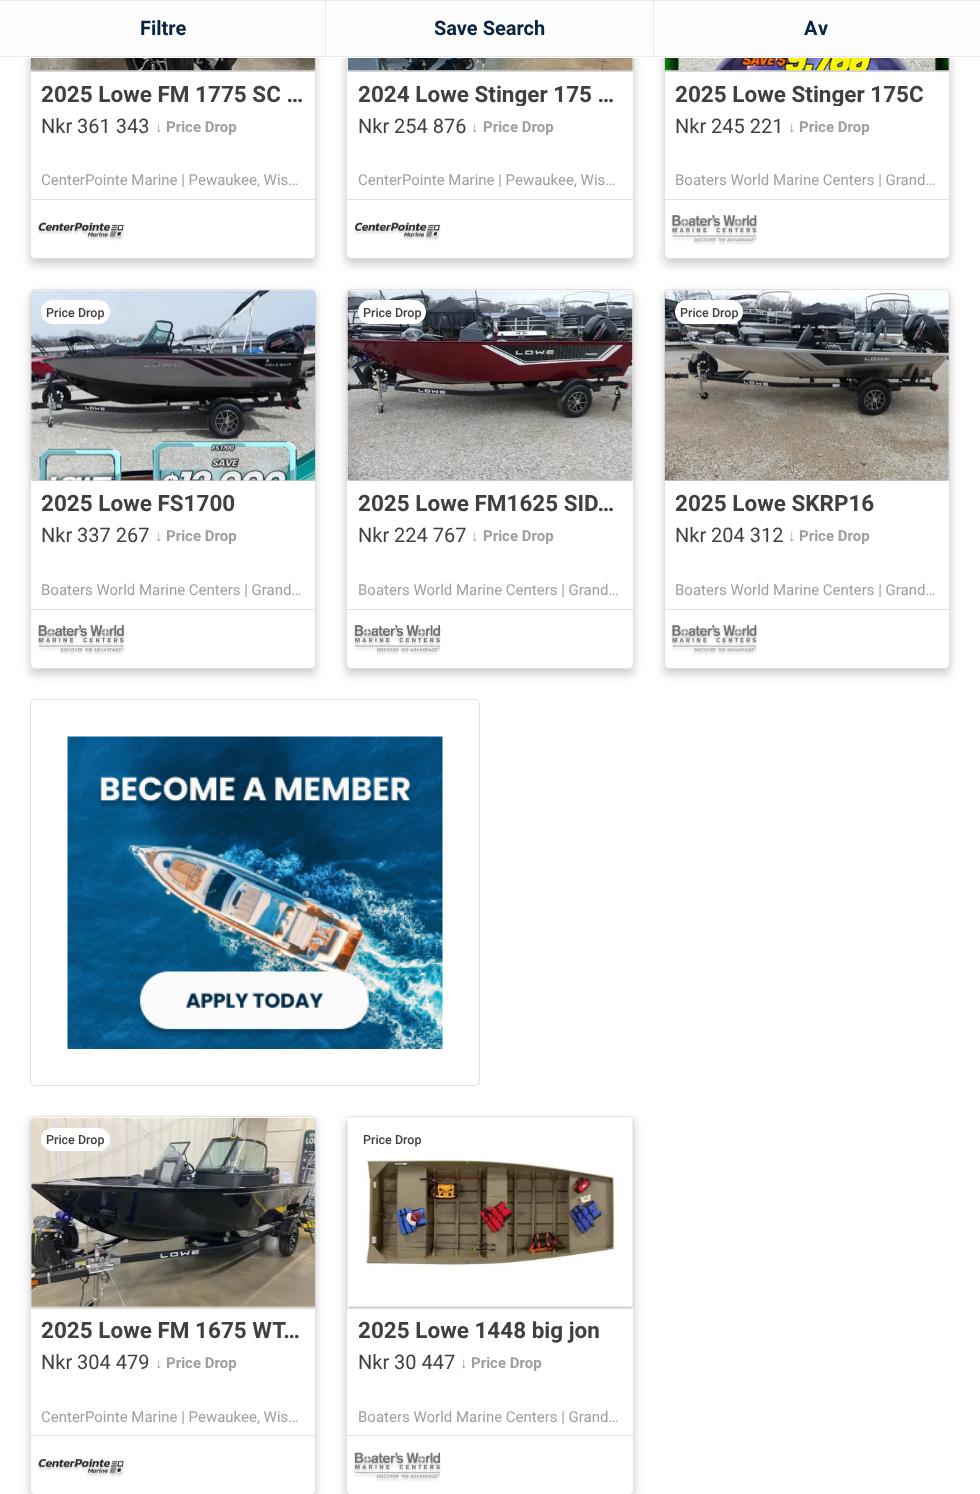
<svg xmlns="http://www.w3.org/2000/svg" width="980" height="1494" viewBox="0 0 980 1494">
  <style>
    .t1 { font: bold 20px Roboto; fill: #0a243f; }
    .t2 { font: bold 20px Roboto; letter-spacing: 1px; fill: #0a243f; }
    .t3 { font: bold 22.5px Roboto; fill: #404040; }
    .t4 { font: 20px Roboto; fill: #404040; }
    .t5 { font: bold 15px Liberation Sans; fill: #9e9e9e; }
    .t6 { font: bold 15px Roboto; fill: #9e9e9e; }
    .t7 { font: 15px Roboto; fill: #9e9e9e; }
    .t8 { font: 500 12.5px Roboto; fill: #404040; }
  </style>
  <defs>
    <clipPath id="clip1"><rect x="155" y="118" width="81" height="17"/></clipPath>
    <clipPath id="clip2"><rect x="358" y="80" width="265" height="26"/></clipPath>
    <clipPath id="clip3"><rect x="675" y="80" width="264" height="26"/></clipPath>
    <clipPath id="clip4"><rect x="680" y="305" width="58" height="14"/></clipPath>
    <clipPath id="clip5"><rect x="155" y="1354" width="81" height="17"/></clipPath>
  </defs>
  <rect width="100%" height="100%" fill="#fff"/>
  <rect x="30" y="-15" width="286" height="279" fill="#00000033" filter="blur(5px)"/>
  <rect x="30.5" y="-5.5" width="285" height="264" rx="4.5" fill="#fff" stroke="#e0e0e0"/>
  <rect x="346" y="-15" width="288" height="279" fill="#00000033" filter="blur(5px)"/>
  <rect x="346.5" y="-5.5" width="287" height="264" rx="4.5" fill="#fff" stroke="#e0e0e0"/>
  <rect x="664" y="-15" width="286" height="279" fill="#00000033" filter="blur(5px)"/>
  <rect x="664.5" y="-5.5" width="285" height="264" rx="4.5" fill="#fff" stroke="#e0e0e0"/>
  <rect x="22" y="57" width="936" height="1" fill="#fff"/>
  <rect x="0" y="0" width="980" height="1" fill="#eaeaea"/>
  <rect x="0" y="56" width="980" height="1" fill="#eaeaea"/>
  <rect x="0" y="1" width="322" height="55" fill="#fcfcfc"/>
  <rect x="325" y="1" width="1" height="55" fill="#eaeaea"/>
  <text x="140" y="35" class="t1">Filtre</text>
  <rect x="328" y="1" width="324" height="55" fill="#fcfcfc"/>
  <rect x="653" y="1" width="1" height="55" fill="#eaeaea"/>
  <text x="434" y="35" class="t1">Save Search</text>
  <rect x="658" y="1" width="322" height="55" fill="#fcfcfc"/>
  <text x="804" y="35" class="t2">Av</text>
  <image x="30" y="58" width="286" height="14" href="images/1.png"/>
  <text x="41" y="102" class="t3">2025 Lowe FM 1775 SC …</text>
  <text x="41" y="133" class="t4">Nkr 361 343</text>
  <text x="155" y="132" class="t5">↓</text>
  <g clip-path="url(#clip1)">
    <text x="166" y="132" class="t6">Price Drop</text>
  </g>
  <text x="41" y="185" class="t7">CenterPointe Marine | Pewaukee, Wis…</text>
  <rect x="31" y="199" width="284" height="1" fill="#e0e0e0"/>
  <image x="38" y="222" width="87" height="19" href="images/2.png"/>
  <image x="347" y="58" width="287" height="14" href="images/3.png"/>
  <g clip-path="url(#clip2)">
    <text x="358" y="102" class="t3">2024 Lowe Stinger 175 …</text>
  </g>
  <text x="358" y="133" class="t4">Nkr 254 876</text>
  <text x="471" y="132" class="t5">↓</text>
  <text x="483" y="132" class="t6">Price Drop</text>
  <text x="358" y="185" class="t7">CenterPointe Marine | Pewaukee, Wis…</text>
  <rect x="348" y="199" width="285" height="1" fill="#e0e0e0"/>
  <image x="354" y="222" width="87" height="19" href="images/4.png"/>
  <image x="664" y="58" width="286" height="14" href="images/5.png"/>
  <g clip-path="url(#clip3)">
    <text x="675" y="102" class="t3">2025 Lowe Stinger 175C</text>
  </g>
  <text x="675" y="133" class="t4">Nkr 245 221</text>
  <text x="788" y="132" class="t5">↓</text>
  <text x="799" y="132" class="t6">Price Drop</text>
  <text x="675" y="185" class="t7">Boaters World Marine Centers | Grand…</text>
  <rect x="665" y="199" width="284" height="1" fill="#e0e0e0"/>
  <image x="671" y="215" width="87" height="30" href="images/6.png"/>
  <rect x="30" y="294" width="286" height="380" fill="#00000033" filter="blur(5px)"/>
  <rect x="30.5" y="289.5" width="285" height="379" rx="4.5" fill="#fff" stroke="#e0e0e0"/>
  <image x="30" y="290" width="286" height="191" href="images/7.png"/>
  <rect x="41" y="300" width="69" height="24" rx="12" fill="#fff"/>
  <text x="46" y="317" class="t8">Price Drop</text>
  <text x="41" y="511" class="t3">2025 Lowe FS1700</text>
  <text x="41" y="542" class="t4">Nkr 337 267</text>
  <text x="155" y="541" class="t5">↓</text>
  <text x="166" y="541" class="t6">Price Drop</text>
  <text x="41" y="595" class="t7">Boaters World Marine Centers | Grand…</text>
  <rect x="31" y="609" width="284" height="1" fill="#e0e0e0"/>
  <image x="38" y="625" width="87" height="30" href="images/8.png"/>
  <rect x="346" y="294" width="288" height="380" fill="#00000033" filter="blur(5px)"/>
  <rect x="346.5" y="289.5" width="287" height="379" rx="4.5" fill="#fff" stroke="#e0e0e0"/>
  <image x="346" y="290" width="288" height="191" href="images/9.png"/>
  <rect x="358" y="300" width="68" height="24" rx="12" fill="#fff"/>
  <text x="363" y="317" class="t8">Price Drop</text>
  <text x="358" y="511" class="t3">2025 Lowe FM1625 SID…</text>
  <text x="358" y="542" class="t4">Nkr 224 767</text>
  <text x="471" y="541" class="t5">↓</text>
  <text x="483" y="541" class="t6">Price Drop</text>
  <text x="358" y="595" class="t7">Boaters World Marine Centers | Grand…</text>
  <rect x="348" y="609" width="285" height="1" fill="#e0e0e0"/>
  <image x="354" y="625" width="87" height="30" href="images/10.png"/>
  <rect x="664" y="294" width="286" height="380" fill="#00000033" filter="blur(5px)"/>
  <rect x="664.5" y="289.5" width="285" height="379" rx="4.5" fill="#fff" stroke="#e0e0e0"/>
  <image x="664" y="290" width="286" height="191" href="images/11.png"/>
  <rect x="675" y="300" width="68" height="24" rx="12" fill="#fff"/>
  <g clip-path="url(#clip4)">
    <text x="680" y="317" class="t8">Price Drop</text>
  </g>
  <text x="675" y="511" class="t3">2025 Lowe SKRP16</text>
  <text x="675" y="542" class="t4">Nkr 204 312</text>
  <text x="788" y="541" class="t5">↓</text>
  <text x="799" y="541" class="t6">Price Drop</text>
  <text x="675" y="595" class="t7">Boaters World Marine Centers | Grand…</text>
  <rect x="665" y="609" width="284" height="1" fill="#e0e0e0"/>
  <image x="671" y="625" width="87" height="30" href="images/12.png"/>
  <rect x="30.5" y="699.5" width="449" height="386" rx="4.5" fill="none" stroke="#e0e0e0"/>
  <image x="67" y="736" width="376" height="313" href="images/13.png"/>
  <rect x="30" y="1121" width="286" height="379" fill="#00000033" filter="blur(5px)"/>
  <rect x="30.5" y="1116.5" width="285" height="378" rx="4.5" fill="#fff" stroke="#e0e0e0"/>
  <image x="30" y="1117" width="286" height="192" href="images/14.png"/>
  <rect x="41" y="1128" width="69" height="23" rx="11.5" fill="#fff"/>
  <text x="46" y="1144" class="t8">Price Drop</text>
  <text x="41" y="1338" class="t3">2025 Lowe FM 1675 WT…</text>
  <text x="41" y="1369" class="t4">Nkr 304 479</text>
  <text x="155" y="1368" class="t5">↓</text>
  <g clip-path="url(#clip5)">
    <text x="166" y="1368" class="t6">Price Drop</text>
  </g>
  <text x="41" y="1422" class="t7">CenterPointe Marine | Pewaukee, Wis…</text>
  <rect x="31" y="1435" width="284" height="1" fill="#e0e0e0"/>
  <image x="38" y="1458" width="87" height="19" href="images/15.png"/>
  <rect x="346" y="1121" width="288" height="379" fill="#00000033" filter="blur(5px)"/>
  <rect x="346.5" y="1116.5" width="287" height="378" rx="4.5" fill="#fff" stroke="#e0e0e0"/>
  <image x="346" y="1121" width="288" height="188" href="images/16.png"/>
  <text x="363" y="1144" class="t8">Price Drop</text>
  <text x="358" y="1338" class="t3">2025 Lowe 1448 big jon</text>
  <text x="358" y="1369" class="t4">Nkr 30 447</text>
  <text x="460" y="1368" class="t5">↓</text>
  <text x="471" y="1368" class="t6">Price Drop</text>
  <text x="358" y="1422" class="t7">Boaters World Marine Centers | Grand…</text>
  <rect x="348" y="1435" width="285" height="1" fill="#e0e0e0"/>
  <image x="354" y="1452" width="87" height="29" href="images/17.png"/>
</svg>
